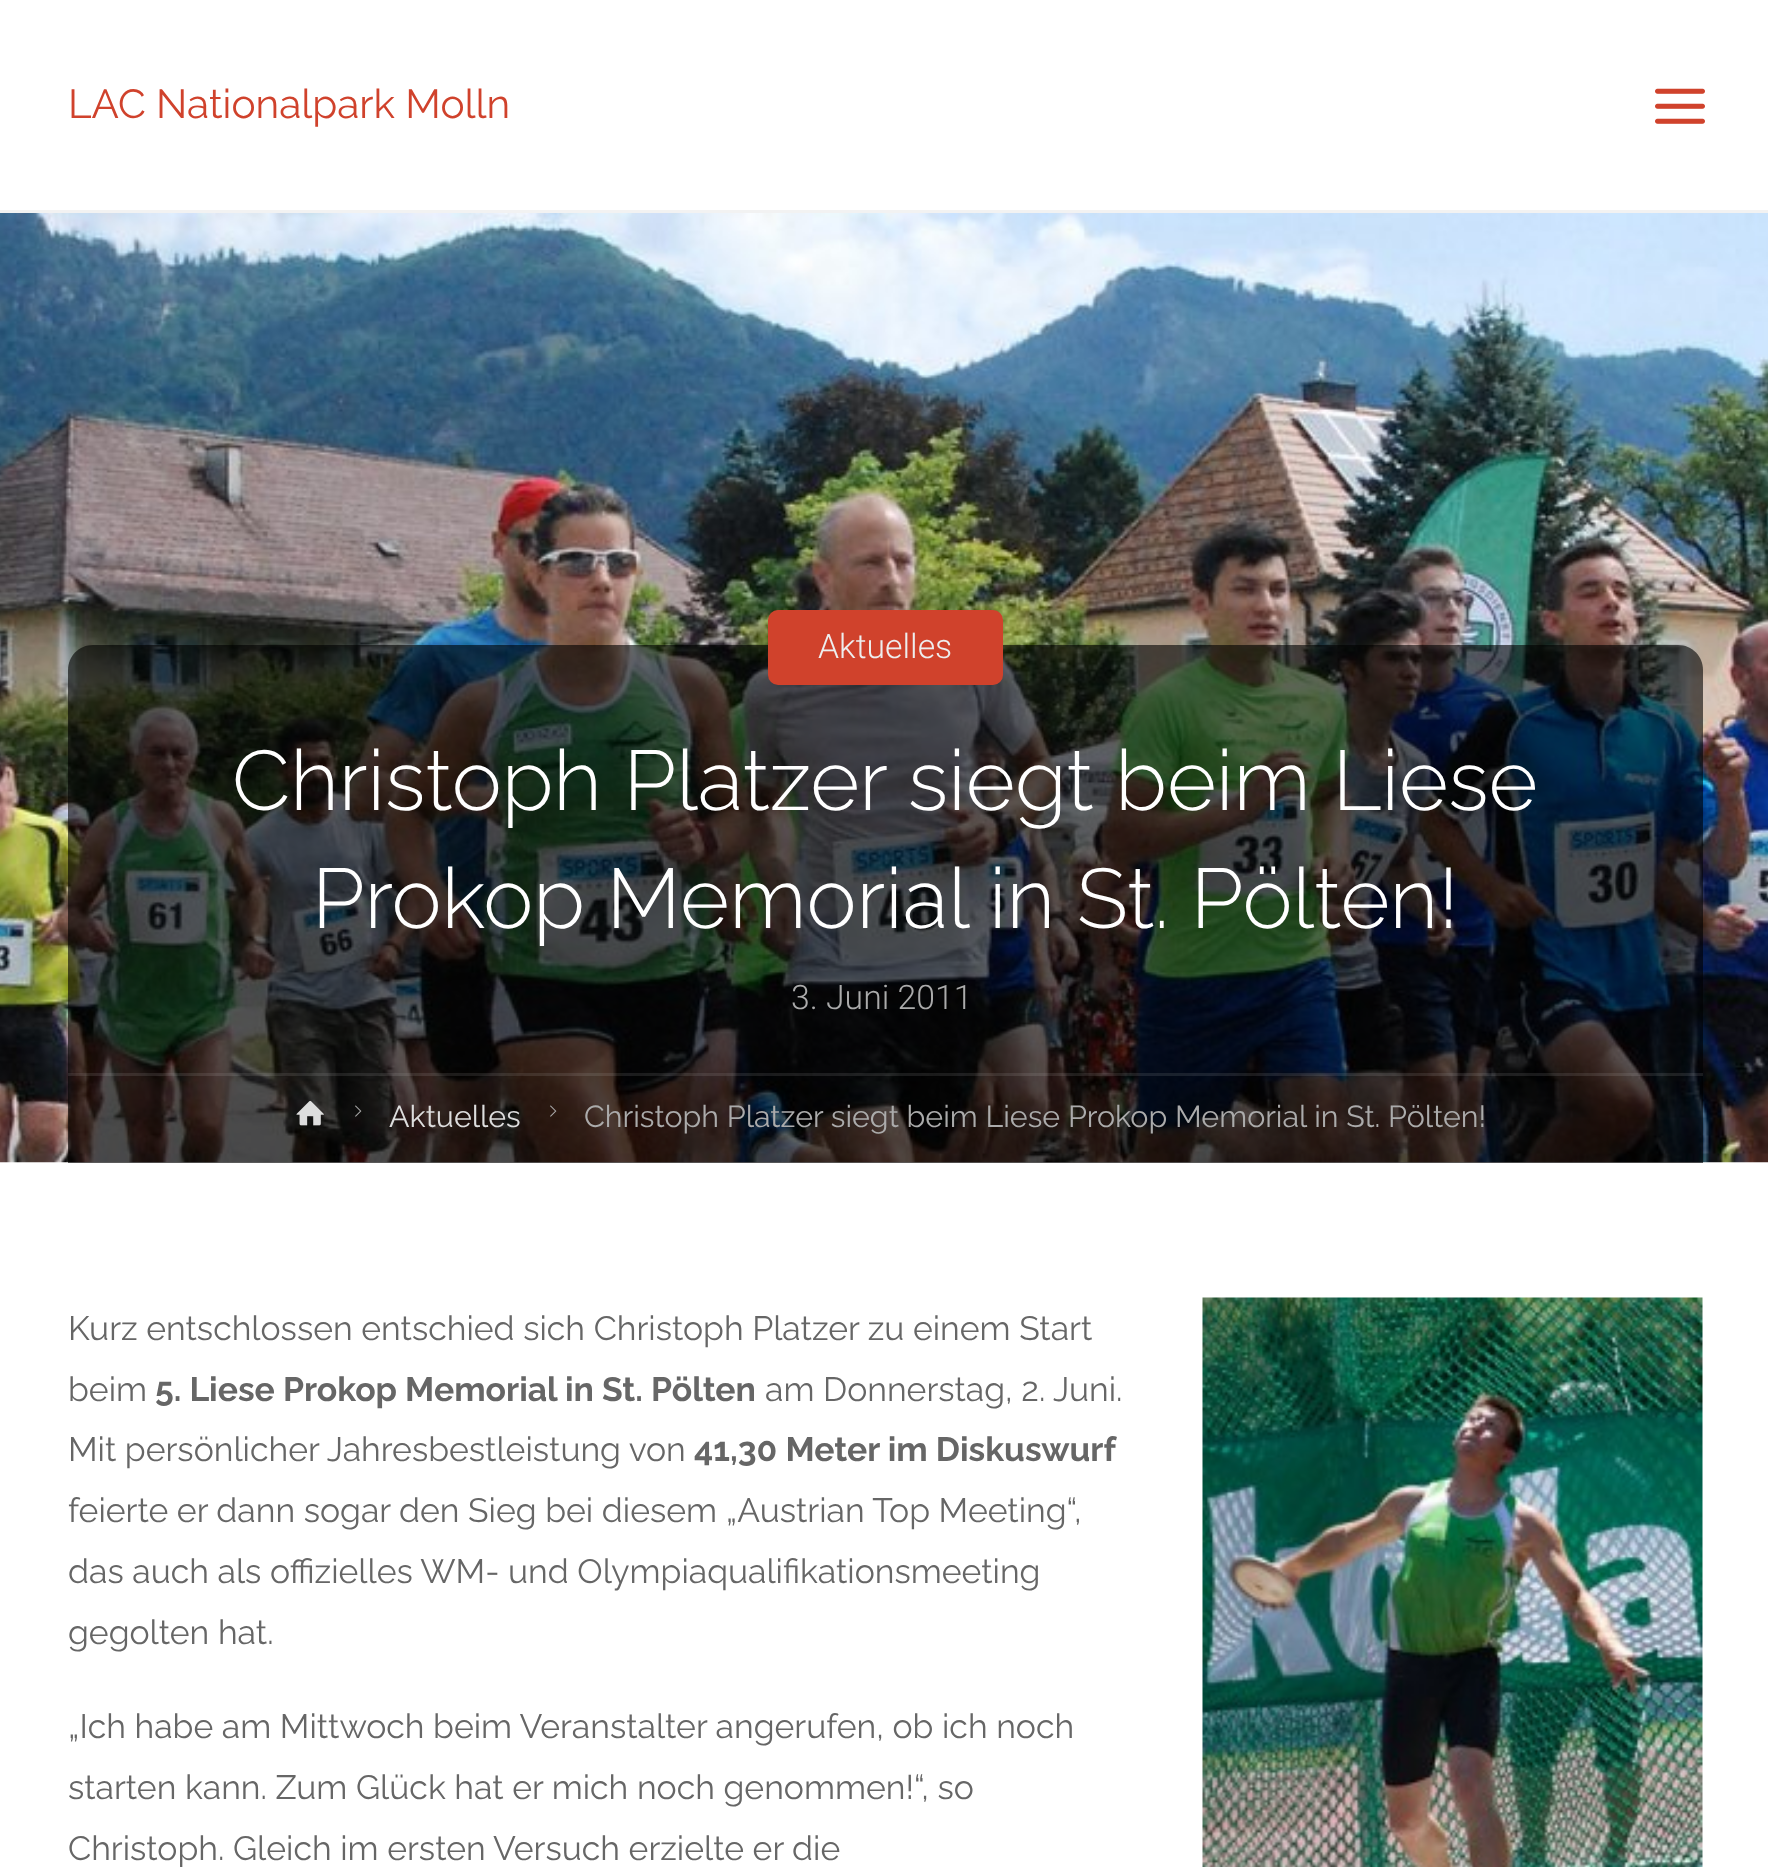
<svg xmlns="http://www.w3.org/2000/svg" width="1768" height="1867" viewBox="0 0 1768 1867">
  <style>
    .t1 { font: 40.5px Raleway; fill: #d0422c; }
    .t2 { font: 300 33.75px Roboto; fill: #eee; }
    .t3 { font: 300 33.75px Roboto; fill: #ababab; }
    .t4 { font: 300 84.4px Raleway; fill: #fff; }
    .t5 { font: 30.4px Raleway; fill: #ddd; }
    .t6 { font: 30.4px Raleway; fill: #ababab; }
    .t7 { font: 33.75px Raleway; fill: #666; }
    .t8 { font: bold 33.75px Raleway; fill: #666; }
  </style>
  <rect width="100%" height="100%" fill="#fff"/>
  <rect x="0" y="210" width="1768" height="3" fill="#f2f2f2"/>
  <text x="68" y="118" class="t1">LAC Nationalpark Molln</text>
  <image x="1655" y="88" width="50" height="36" href="images/1.png"/>
  <image x="0" y="213" width="1768" height="950" href="images/2.png"/>
  <path d="M93 645H1678C1692 645 1703 656 1703 670V1163H68V670C68 656 79 645 93 645Z" fill="#00000099"/>
  <rect x="768" y="610" width="235" height="75" rx="10" fill="#d0422c"/>
  <text x="818" y="658" class="t2">Aktuelles</text>
  <text x="791" y="1009" class="t3">3. Juni 2011</text>
  <text x="232" y="810" class="t4">Christoph Platzer siegt beim Liese</text>
  <text x="312" y="928" class="t4">Prokop Memorial in St. Pölten!</text>
  <rect x="68" y="1073" width="1635" height="90" fill="#0000000d"/>
  <rect x="68" y="1073" width="1635" height="3" fill="#ffffff1a"/>
  <image x="296" y="1100" width="28" height="26" href="images/3.png"/>
  <image x="355" y="1105" width="7" height="12" href="images/4.png"/>
  <text x="389" y="1127" class="t5">Aktuelles</text>
  <image x="550" y="1105" width="7" height="12" href="images/5.png"/>
  <text x="584" y="1127" class="t6">Christoph Platzer siegt beim Liese Prokop Memorial in St. Pölten!</text>
  <text x="68" y="1340" class="t7">Kurz entschlossen entschied sich Christoph Platzer zu einem Start</text>
  <image x="1202" y="1297" width="501" height="570" href="images/6.png"/>
  <text x="68" y="1401" class="t7">beim</text>
  <text x="155" y="1401" class="t8">5. Liese Prokop Memorial in St. Pölten</text>
  <text x="765" y="1401" class="t7">am Donnerstag, 2. Juni.</text>
  <text x="68" y="1461" class="t7">Mit persönlicher Jahresbestleistung von</text>
  <text x="694" y="1461" class="t8">41,30 Meter im Diskuswurf</text>
  <text x="68" y="1522" class="t7">feierte er dann sogar den Sieg bei diesem „Austrian Top Meeting“,</text>
  <text x="68" y="1583" class="t7">das auch als offizielles WM- und Olympiaqualifikationsmeeting</text>
  <text x="68" y="1644" class="t7">gegolten hat.</text>
  <text x="68" y="1738" class="t7">„Ich habe am Mittwoch beim Veranstalter angerufen, ob ich noch</text>
  <text x="68" y="1799" class="t7">starten kann. Zum Glück hat er mich noch genommen!“, so</text>
  <text x="68" y="1860" class="t7">Christoph. Gleich im ersten Versuch erzielte er die</text>
</svg>
